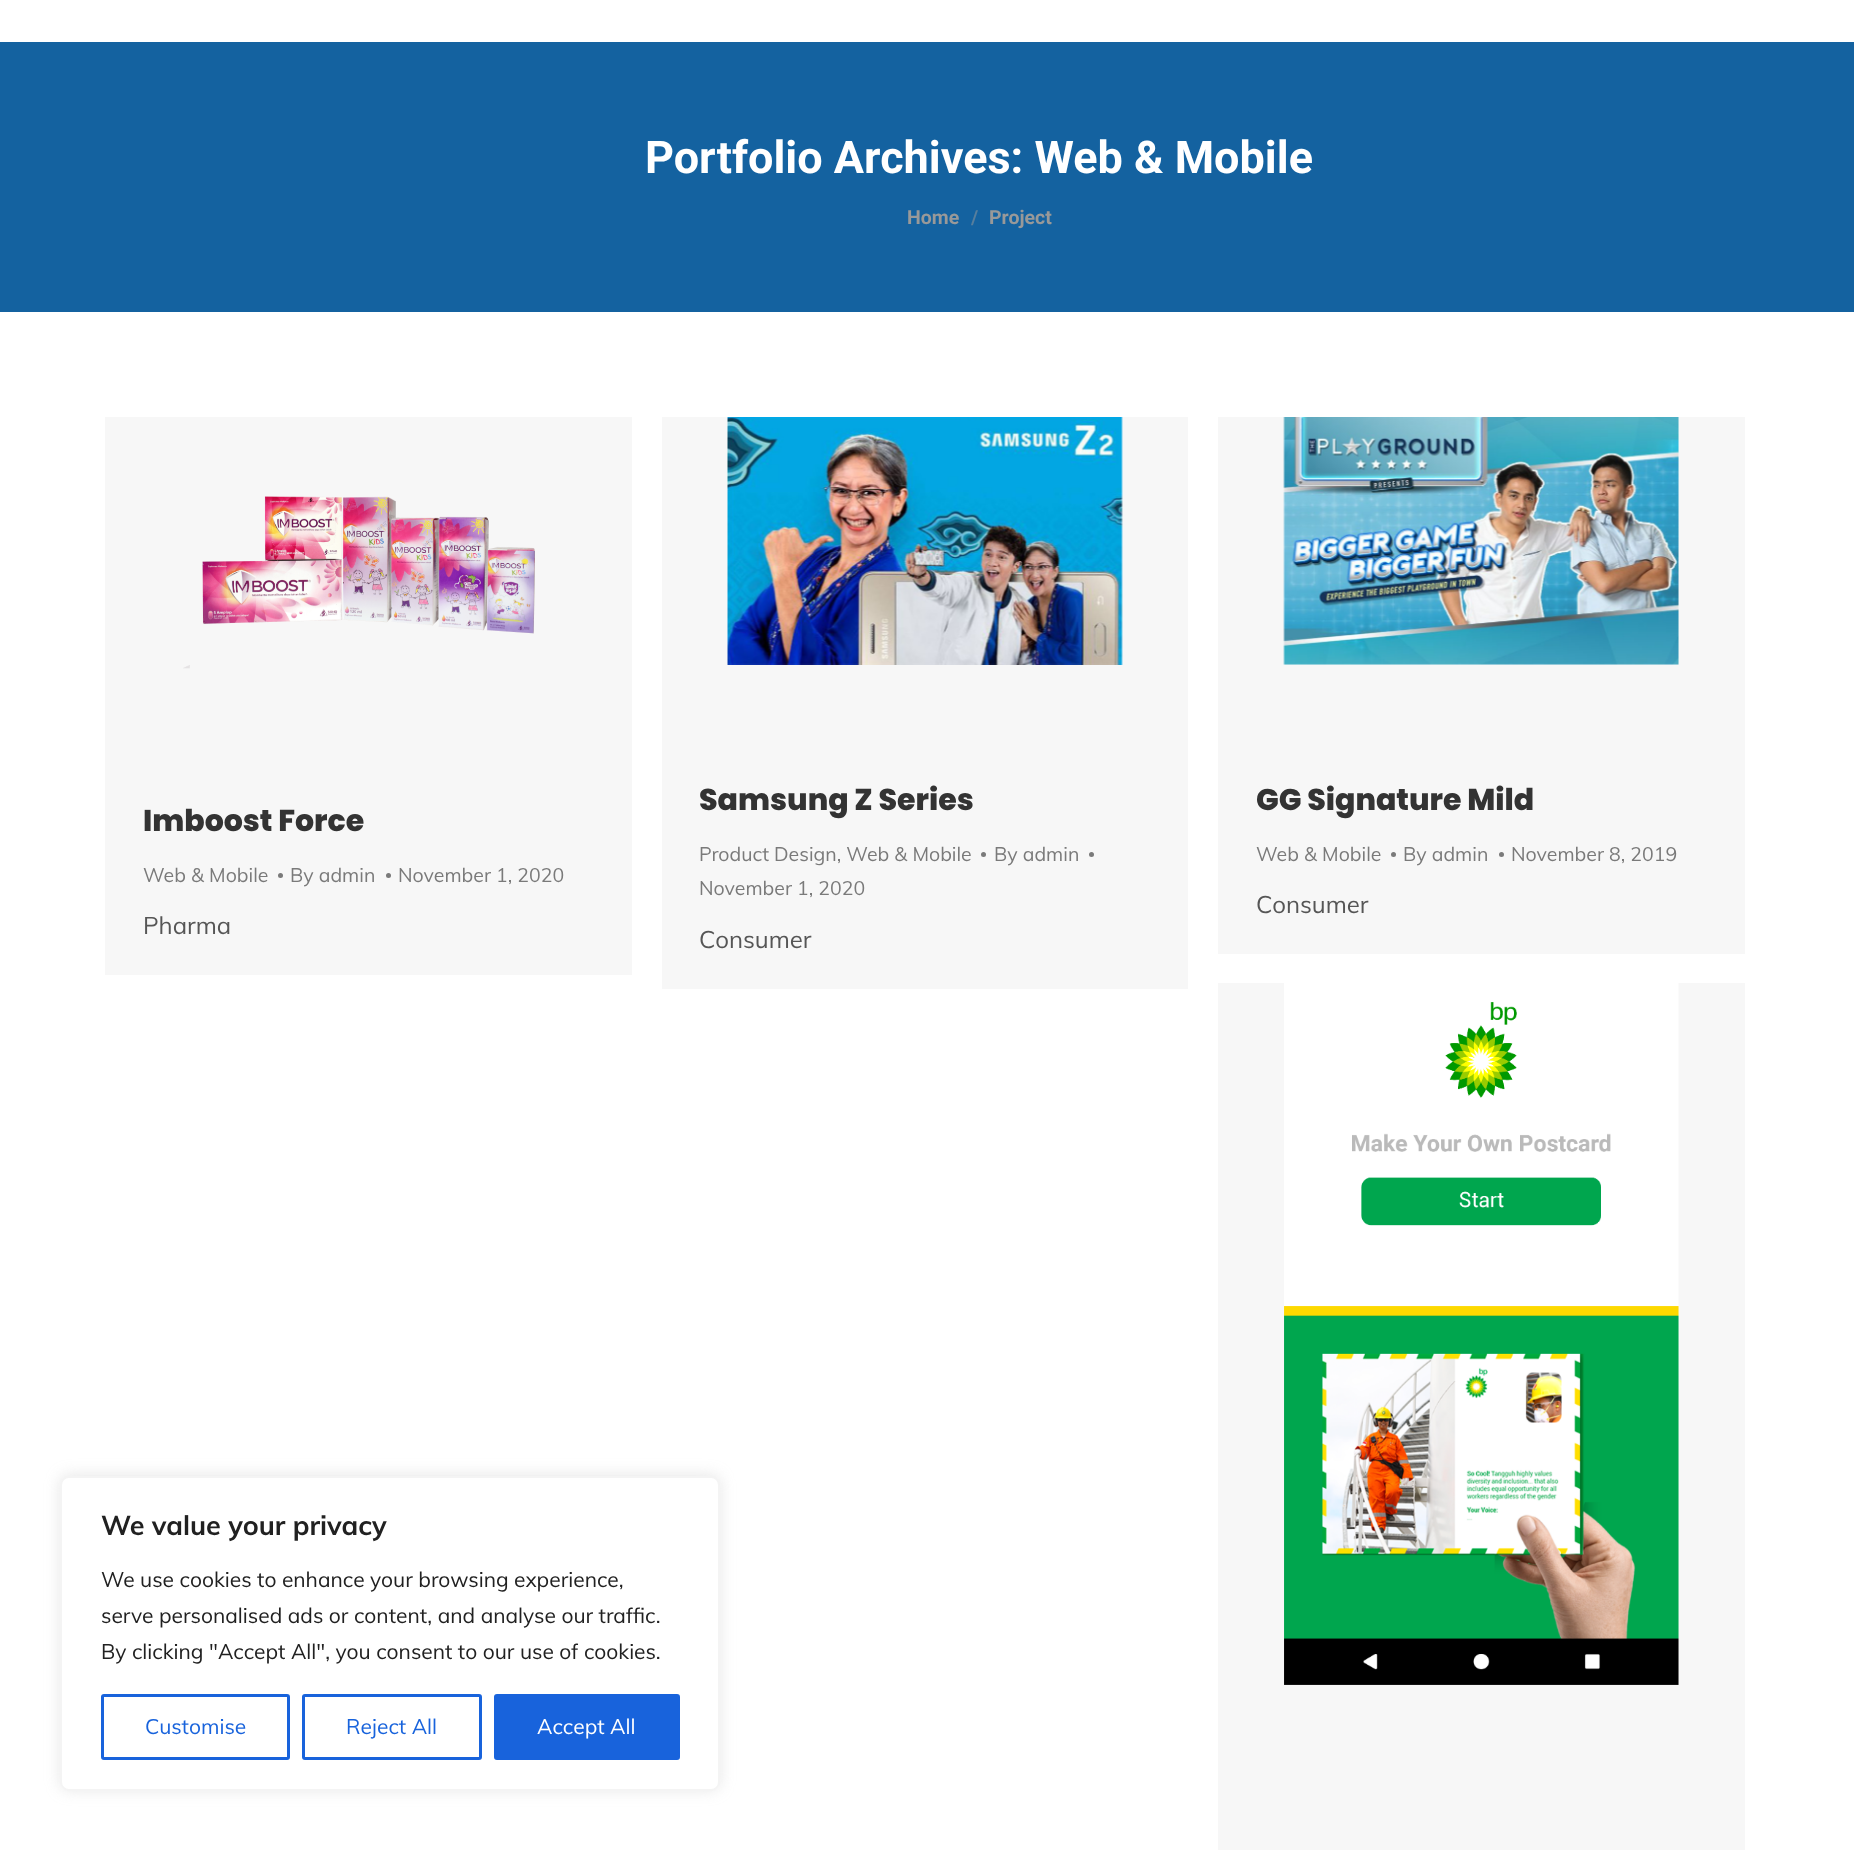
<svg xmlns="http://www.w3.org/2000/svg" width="1854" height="1850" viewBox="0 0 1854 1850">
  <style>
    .t1 { font: bold 45px Roboto; fill: #fff; }
    .t2 { font: bold 19.5px Roboto; fill: #999; }
    .t3 { font: bold 19.5px Roboto; fill: #577e9d; }
    .t4 { font: 800 30px Poppins; fill: #333; }
    .t5 { font: 19.5px Muli; fill: #7a7a7a; }
    .t6 { font: 24px Muli; fill: #565656; }
    .t7 { font: bold 27px Muli; fill: #212121; }
    .t8 { font: 21px Muli; fill: #212121; }
    .t9 { font: 21px Muli; fill: #1863dc; }
    .t10 { font: 21px Muli; fill: #fff; }
  </style>
  <rect width="100%" height="100%" fill="#fff"/>
  <rect x="0" y="42" width="1854" height="270" fill="#1462a0"/>
  <text x="645" y="173" class="t1">Portfolio Archives: Web &amp; Mobile</text>
  <text x="907" y="224" class="t2">Home</text>
  <text x="971" y="224" class="t3">/</text>
  <text x="989" y="224" class="t2">Project</text>
  <rect x="105" y="417" width="527" height="558" fill="#f7f7f7"/>
  <image x="183" y="496" width="352" height="173" href="images/1.png"/>
  <text x="143" y="831" class="t4">Imboost Force</text>
  <text x="143" y="882" class="t5">Web &amp; Mobile</text>
  <circle cx="280.5" cy="875.5" r="2.5" fill="#7a7a7a"/>
  <text x="290" y="882" class="t5">By admin</text>
  <circle cx="388.5" cy="875.5" r="2.5" fill="#7a7a7a"/>
  <text x="398" y="882" class="t5">November 1, 2020</text>
  <text x="143" y="934" class="t6">Pharma</text>
  <rect x="662" y="417" width="526" height="572" fill="#f7f7f7"/>
  <image x="727" y="417" width="396" height="248" href="images/2.png"/>
  <text x="699" y="810" class="t4">Samsung Z Series</text>
  <text x="699" y="861" class="t5">Product Design, Web &amp; Mobile</text>
  <circle cx="983.5" cy="854.5" r="2.5" fill="#7a7a7a"/>
  <text x="994" y="861" class="t5">By admin</text>
  <circle cx="1091.5" cy="854.5" r="2.5" fill="#7a7a7a"/>
  <text x="699" y="895" class="t5">November 1, 2020</text>
  <text x="699" y="948" class="t6">Consumer</text>
  <rect x="1218" y="417" width="527" height="537" fill="#f7f7f7"/>
  <image x="1283" y="417" width="396" height="248" href="images/3.png"/>
  <text x="1256" y="810" class="t4">GG Signature Mild</text>
  <text x="1256" y="861" class="t5">Web &amp; Mobile</text>
  <circle cx="1393.5" cy="854.5" r="2.5" fill="#7a7a7a"/>
  <text x="1403" y="861" class="t5">By admin</text>
  <circle cx="1501.5" cy="854.5" r="2.5" fill="#7a7a7a"/>
  <text x="1511" y="861" class="t5">November 8, 2019</text>
  <text x="1256" y="913" class="t6">Consumer</text>
  <rect x="1218" y="983" width="527" height="867" fill="#f7f7f7"/>
  <image x="1284" y="983" width="395" height="702" href="images/4.png"/>
  <rect x="60" y="1475" width="660" height="315" rx="9" fill="#acabab4d" filter="blur(7.5px)"/>
  <rect x="61" y="1477" width="658" height="313" rx="8" fill="#fff" stroke="#f4f4f4" stroke-width="2"/>
  <text x="101" y="1535" class="t7">We value your privacy</text>
  <text x="101" y="1587" class="t8">We use cookies to enhance your browsing experience,</text>
  <text x="101" y="1623" class="t8">serve personalised ads or content, and analyse our traffic.</text>
  <text x="101" y="1659" class="t8">By clicking "Accept All", you consent to our use of cookies.</text>
  <rect x="102.5" y="1695.5" width="186" height="63" rx="1.5" fill="none" stroke="#1863dc" stroke-width="3"/>
  <text x="145" y="1734" class="t9">Customise</text>
  <rect x="303.5" y="1695.5" width="177" height="63" rx="1.5" fill="none" stroke="#1863dc" stroke-width="3"/>
  <text x="346" y="1734" class="t9">Reject All</text>
  <rect x="495.5" y="1695.5" width="183" height="63" rx="1.5" fill="#1863dc" stroke="#1863dc" stroke-width="3"/>
  <text x="537" y="1734" class="t10">Accept All</text>
</svg>
